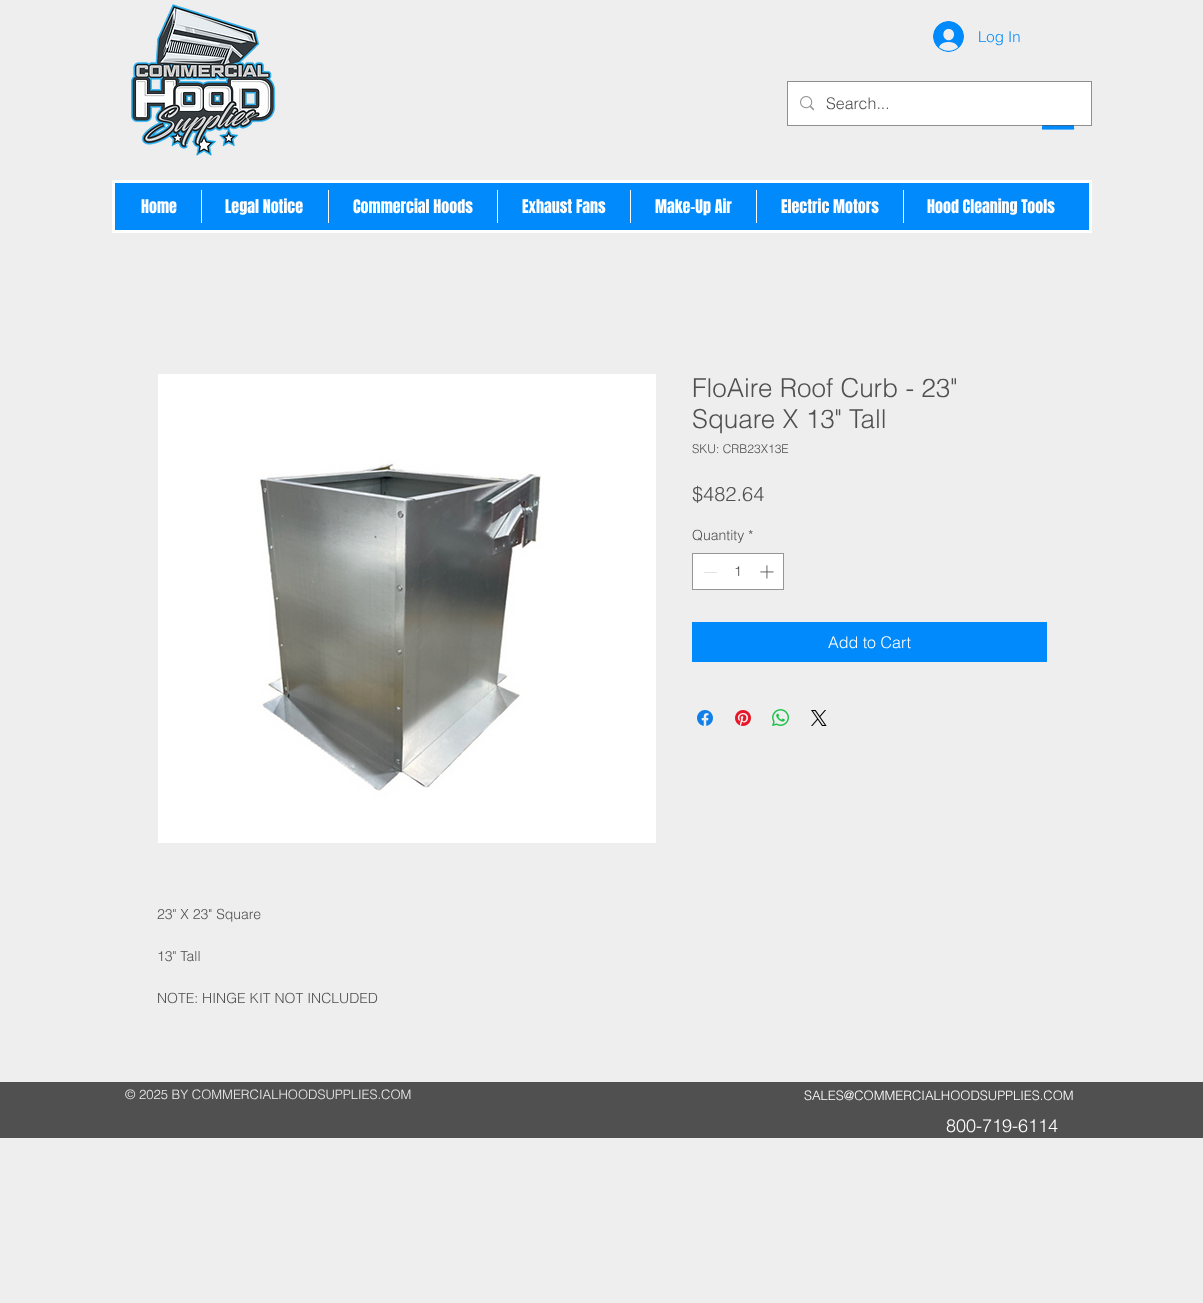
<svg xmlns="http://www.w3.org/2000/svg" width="1203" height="1303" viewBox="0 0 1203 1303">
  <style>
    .t1 { font: 300 15px helvetica; fill: #008afc; }
    .t2 { font: 300 16px helvetica; fill: #505050; }
    .t3 { font: 16px Anton; fill: #fff; }
    .t4 { font: 300 26px helvetica; fill: #505050; }
    .t5 { font: 300 12px helvetica; fill: #505050; }
    .t6 { font: 300 20px helvetica; fill: #505050; }
    .t7 { font: 300 14px helvetica; fill: #505050; }
    .t8 { font: 300 16px helvetica; fill: #fff; }
    .t9 { font: 300 13px helvetica; fill: #eee; }
    .t10 { font: 300 13px helvetica; fill: #fff; }
    .t11 { font: 300 18px helvetica; fill: #fff; }
  </style>
  <rect width="100%" height="100%" fill="#eee"/>
  <image x="131" y="4" width="145" height="152" href="images/1.png"/>
  <image x="933" y="21" width="31" height="31" href="images/2.png"/>
  <text x="978" y="42" class="t1">Log In</text>
  <image x="1041" y="125" width="34" height="5" href="images/4.png"/>
  <rect x="787.5" y="81.5" width="304" height="44" fill="none" stroke="#50505099"/>
  <rect x="788" y="82" width="303" height="43" fill="#fff"/>
  <image x="800" y="96" width="14" height="15" href="images/3.png"/>
  <text x="826" y="109" class="t2">Search...</text>
  <rect x="113.5" y="181.5" width="977" height="50" fill="#008afc" stroke="#fff" stroke-width="3"/>
  <text x="141" y="213" class="t3">Home</text>
  <rect x="201" y="190" width="1" height="33" fill="#fff"/>
  <text x="225" y="213" class="t3">Legal Notice</text>
  <rect x="328" y="190" width="1" height="33" fill="#fff"/>
  <text x="353" y="213" class="t3">Commercial Hoods</text>
  <rect x="497" y="190" width="1" height="33" fill="#fff"/>
  <text x="522" y="213" class="t3">Exhaust Fans</text>
  <rect x="630" y="190" width="1" height="33" fill="#fff"/>
  <text x="655" y="213" class="t3">Make-Up Air</text>
  <rect x="756" y="190" width="1" height="33" fill="#fff"/>
  <text x="781" y="213" class="t3">Electric Motors</text>
  <rect x="903" y="190" width="1" height="33" fill="#fff"/>
  <text x="927" y="213" class="t3">Hood Cleaning Tools</text>
  <text x="692" y="397" class="t4">FloAire Roof Curb - 23"</text>
  <text x="692" y="428" class="t4">Square X 13" Tall</text>
  <text x="692" y="453" class="t5">SKU: CRB23X13E</text>
  <text x="692" y="501" class="t6">$482.64</text>
  <text x="692" y="540" class="t7">Quantity *</text>
  <rect x="692.5" y="553.5" width="91" height="36" fill="#fff" stroke="#969696"/>
  <rect x="704" y="572" width="13" height="1" fill="#e3e3e3"/>
  <text x="734" y="576" class="t7">1</text>
  <image x="760" y="565" width="14" height="14" href="images/5.png"/>
  <rect x="692" y="622" width="355" height="40" fill="#008afc"/>
  <text x="828" y="648" class="t8">Add to Cart</text>
  <image x="697" y="710" width="16" height="16" href="images/6.png"/>
  <image x="735" y="710" width="16" height="16" href="images/7.png"/>
  <image x="772" y="709" width="17" height="17" href="images/8.png"/>
  <image x="811" y="710" width="16" height="16" href="images/9.png"/>
  <image x="158" y="374" width="498" height="469" href="images/10.png"/>
  <text x="157" y="919" class="t7">23" X 23" Square</text>
  <text x="157" y="961" class="t7">13" Tall</text>
  <text x="157" y="1003" class="t7">NOTE: HINGE KIT NOT INCLUDED</text>
  <rect x="0" y="1082" width="1203" height="56" fill="#505050"/>
  <text x="125" y="1099" class="t9">© 2025 BY COMMERCIALHOODSUPPLIES.COM</text>
  <text x="804" y="1100" class="t10">SALES@COMMERCIALHOODSUPPLIES.COM</text>
  <text x="946" y="1132" class="t11">800-719-6114</text>
</svg>
